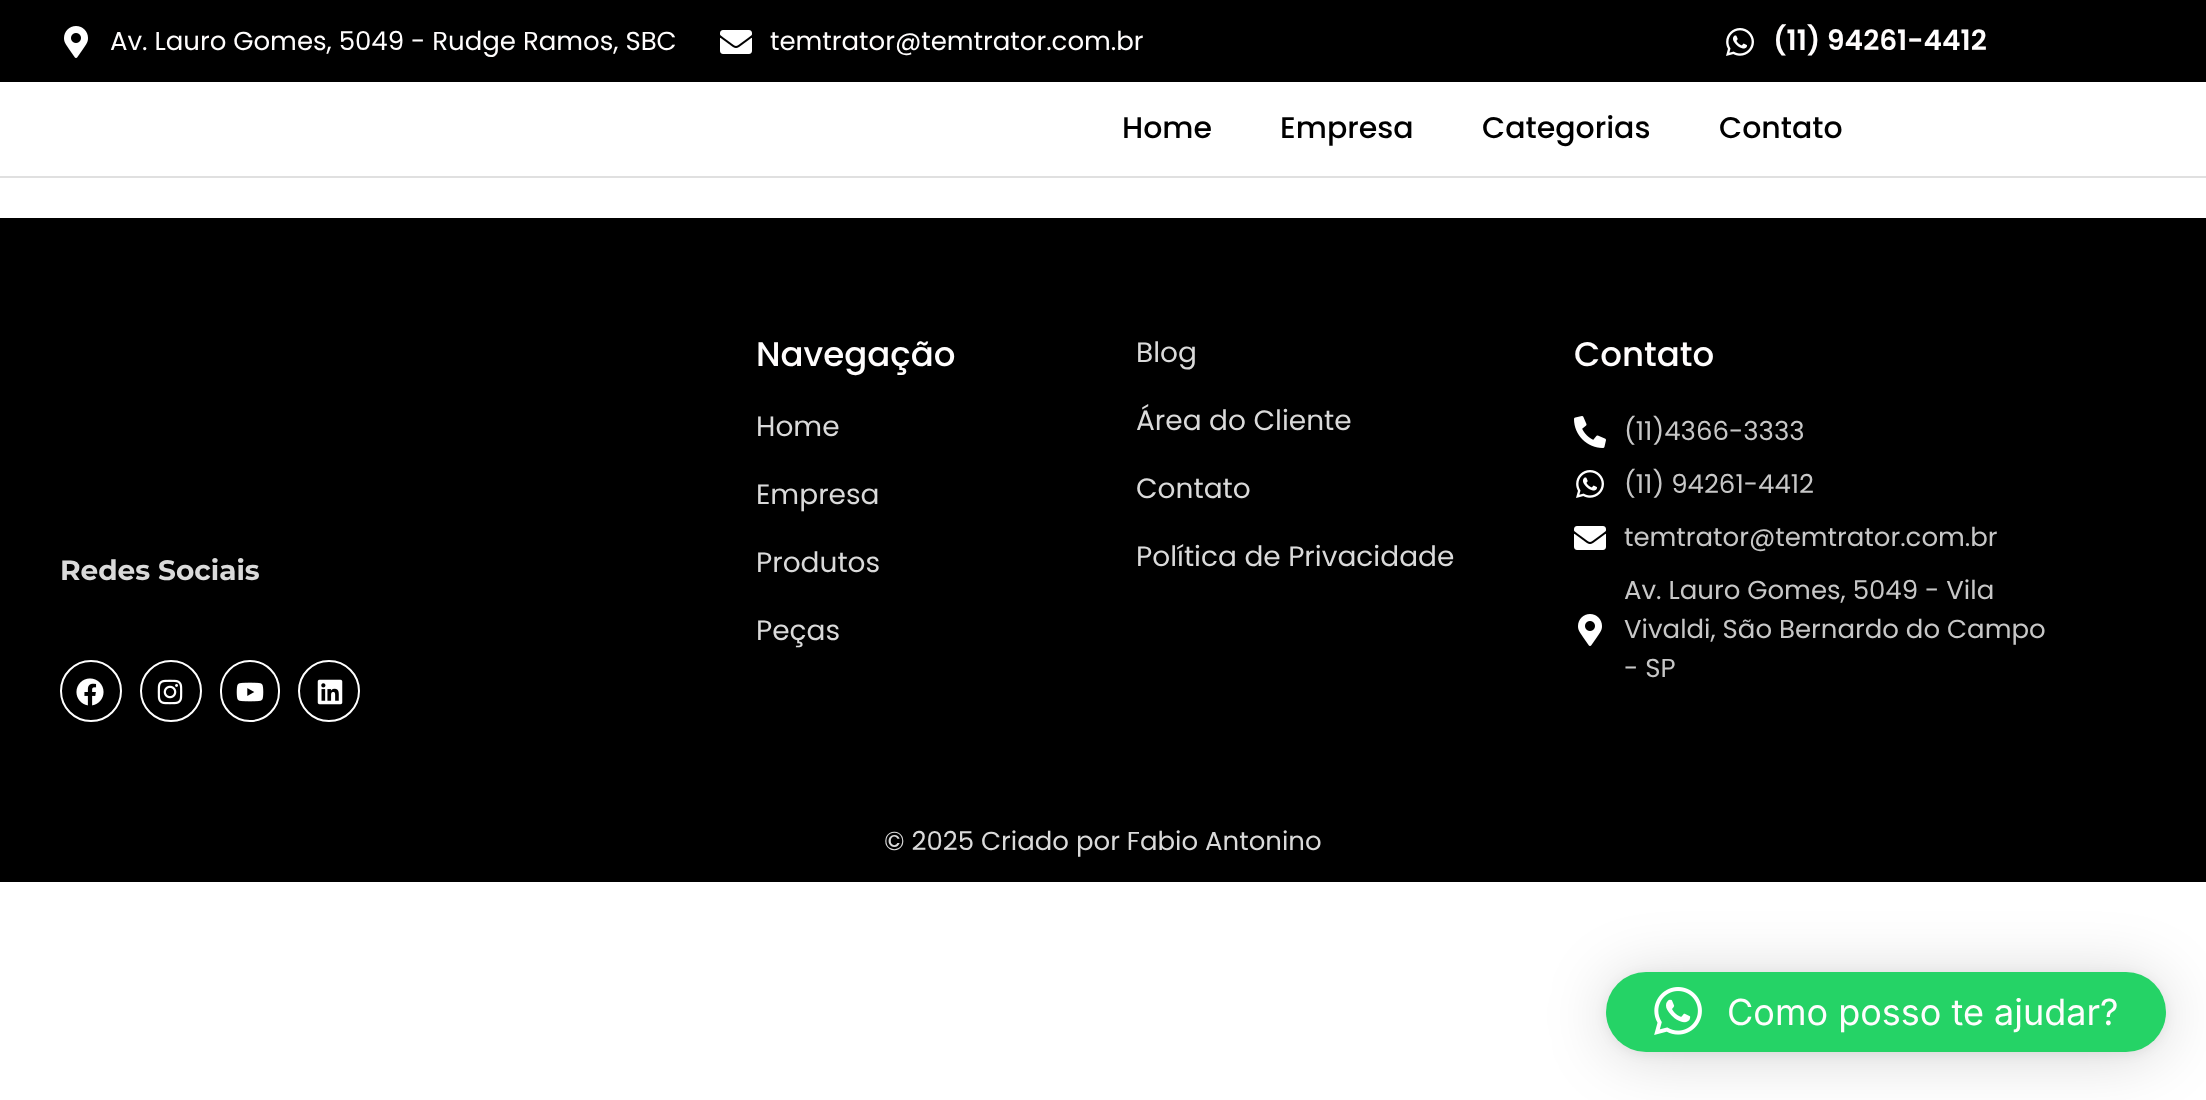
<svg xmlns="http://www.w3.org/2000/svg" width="2206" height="1100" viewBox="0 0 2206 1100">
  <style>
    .t1 { font: 26px Poppins; fill: #fffdfd; }
    .t2 { font: 600 28px Poppins; fill: #fffdfd; }
    .t3 { font: 500 30px Poppins; fill: #000; }
    .t4 { font: bold 28px Montserrat; fill: #dadada; }
    .t5 { font: 500 34px Poppins; fill: #fffdfd; }
    .t6 { font: 28px Poppins; fill: #dadada; }
    .t7 { font: 26px Poppins; fill: #c7c7c7; }
    .t8 { font: 26px Poppins; fill: #dadada; }
    .t9 { font: 36px Inter; fill: #fffdfd; }
  </style>
  <rect width="100%" height="100%" fill="#fff"/>
  <rect x="0" y="0" width="2206" height="82" fill="#000"/>
  <image x="64" y="26" width="24" height="32" href="images/1.png"/>
  <text x="110" y="50" class="t1">Av. Lauro Gomes, 5049 - Rudge Ramos, SBC</text>
  <image x="720" y="30" width="32" height="24" href="images/2.png"/>
  <text x="770" y="50" class="t1">temtrator@temtrator.com.br</text>
  <image x="1726" y="28" width="28" height="28" href="images/3.png"/>
  <text x="1773" y="50" class="t2">(11) 94261-4412</text>
  <rect x="0" y="176" width="2206" height="2" fill="#e0e0e0"/>
  <text x="1122" y="138" class="t3">Home</text>
  <text x="1280" y="138" class="t3">Empresa</text>
  <text x="1482" y="138" class="t3">Categorias</text>
  <text x="1719" y="138" class="t3">Contato</text>
  <rect x="0" y="218" width="2206" height="664" fill="#000"/>
  <text x="60" y="580" class="t4">Redes Sociais</text>
  <circle cx="91" cy="691" r="30" fill="none" stroke="#fff" stroke-width="2"/>
  <image x="76" y="678" width="28" height="28" href="images/4.png"/>
  <circle cx="171" cy="691" r="30" fill="none" stroke="#fff" stroke-width="2"/>
  <image x="157" y="679" width="26" height="26" href="images/5.png"/>
  <rect x="221" y="661" width="58" height="60" rx="29" fill="none" stroke="#fff" stroke-width="2"/>
  <image x="236" y="682" width="28" height="20" href="images/6.png"/>
  <circle cx="329" cy="691" r="30" fill="none" stroke="#fff" stroke-width="2"/>
  <image x="317" y="679" width="26" height="26" href="images/7.png"/>
  <text x="756" y="366" class="t5">Navegação</text>
  <text x="756" y="436" class="t6">Home</text>
  <text x="756" y="504" class="t6">Empresa</text>
  <text x="756" y="572" class="t6">Produtos</text>
  <text x="756" y="640" class="t6">Peças</text>
  <text x="1136" y="362" class="t6">Blog</text>
  <text x="1136" y="430" class="t6">Área do Cliente</text>
  <text x="1136" y="498" class="t6">Contato</text>
  <text x="1136" y="566" class="t6">Política de Privacidade</text>
  <text x="1574" y="366" class="t5">Contato</text>
  <image x="1574" y="416" width="32" height="32" href="images/8.png"/>
  <text x="1624" y="440" class="t7">(11)4366-3333</text>
  <image x="1576" y="470" width="28" height="28" href="images/3.png"/>
  <text x="1624" y="493" class="t7">(11) 94261-4412</text>
  <image x="1574" y="526" width="32" height="24" href="images/2.png"/>
  <text x="1624" y="546" class="t7">temtrator@temtrator.com.br</text>
  <image x="1578" y="614" width="24" height="32" href="images/1.png"/>
  <text x="1624" y="599" class="t7">Av. Lauro Gomes, 5049 - Vila</text>
  <text x="1624" y="638" class="t7">Vivaldi, São Bernardo do Campo</text>
  <text x="1624" y="677" class="t7">- SP</text>
  <text x="884" y="850" class="t8">© 2025 Criado por Fabio Antonino</text>
  <rect x="1606" y="976" width="560" height="80" rx="40" fill="#00000029" filter="blur(32px)"/>
  <rect x="1606" y="974" width="560" height="80" rx="40" fill="#0000000f" filter="blur(6px)"/>
  <rect x="1606" y="972" width="560" height="80" rx="40" fill="#25d366"/>
  <image x="1654" y="987" width="48" height="48" href="images/9.png"/>
  <text x="1727" y="1025" class="t9">Como posso te ajudar?</text>
</svg>
